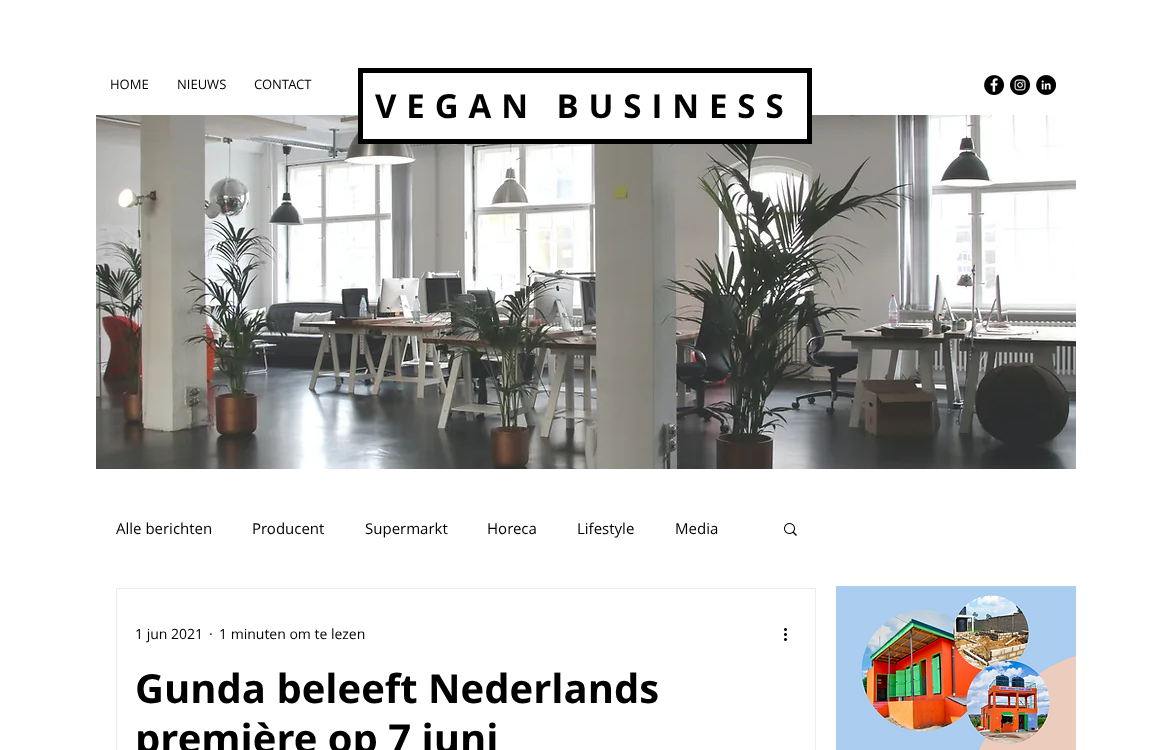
<svg xmlns="http://www.w3.org/2000/svg" width="1172" height="750" viewBox="0 0 1172 750">
  <style>
    .t1 { font: 13px Open Sans; fill: #000; }
    .t2 { font: bold 33px Open Sans; letter-spacing: 9.9px; fill: #000; }
    .t3 { font: 15px Open Sans; fill: #000; }
    .t4 { font: 14px Open Sans; fill: #000; }
    .t5 { font: bold 40px Open Sans; fill: #000; }
  </style>
  <rect width="100%" height="100%" fill="#fff"/>
  <text x="110" y="89" class="t1">HOME</text>
  <text x="177" y="89" class="t1">NIEUWS</text>
  <text x="254" y="89" class="t1">CONTACT</text>
  <image x="984" y="75" width="20" height="20" href="images/1.png"/>
  <image x="1010" y="75" width="20" height="20" href="images/2.png"/>
  <image x="1036" y="75" width="20" height="20" href="images/3.png"/>
  <image x="96" y="115" width="980" height="354" href="images/4.png"/>
  <rect x="363" y="115" width="444" height="24" fill="#fff"/>
  <rect x="360.5" y="70.5" width="449" height="71" fill="none" stroke="#000" stroke-width="5"/>
  <text x="375" y="118" class="t2">VEGAN BUSINESS</text>
  <text x="116" y="534" class="t3">Alle berichten</text>
  <text x="252" y="534" class="t3">Producent</text>
  <text x="365" y="534" class="t3">Supermarkt</text>
  <text x="487" y="534" class="t3">Horeca</text>
  <text x="577" y="534" class="t3">Lifestyle</text>
  <text x="675" y="534" class="t3">Media</text>
  <image x="784" y="523" width="13" height="13" href="images/5.png"/>
  <rect x="116.5" y="588.5" width="699" height="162" fill="none" stroke="#ececec"/>
  <text x="135" y="639" class="t4">1 jun 2021</text>
  <text x="209" y="639" class="t4">·</text>
  <text x="219" y="639" class="t4">1 minuten om te lezen</text>
  <image x="784" y="628" width="3" height="13" href="images/6.png"/>
  <text x="135" y="703" class="t5">Gunda beleeft Nederlands</text>
  <text x="135" y="753" class="t5">première op 7 juni</text>
  <image x="836" y="586" width="240" height="164" href="images/7.png"/>
</svg>
